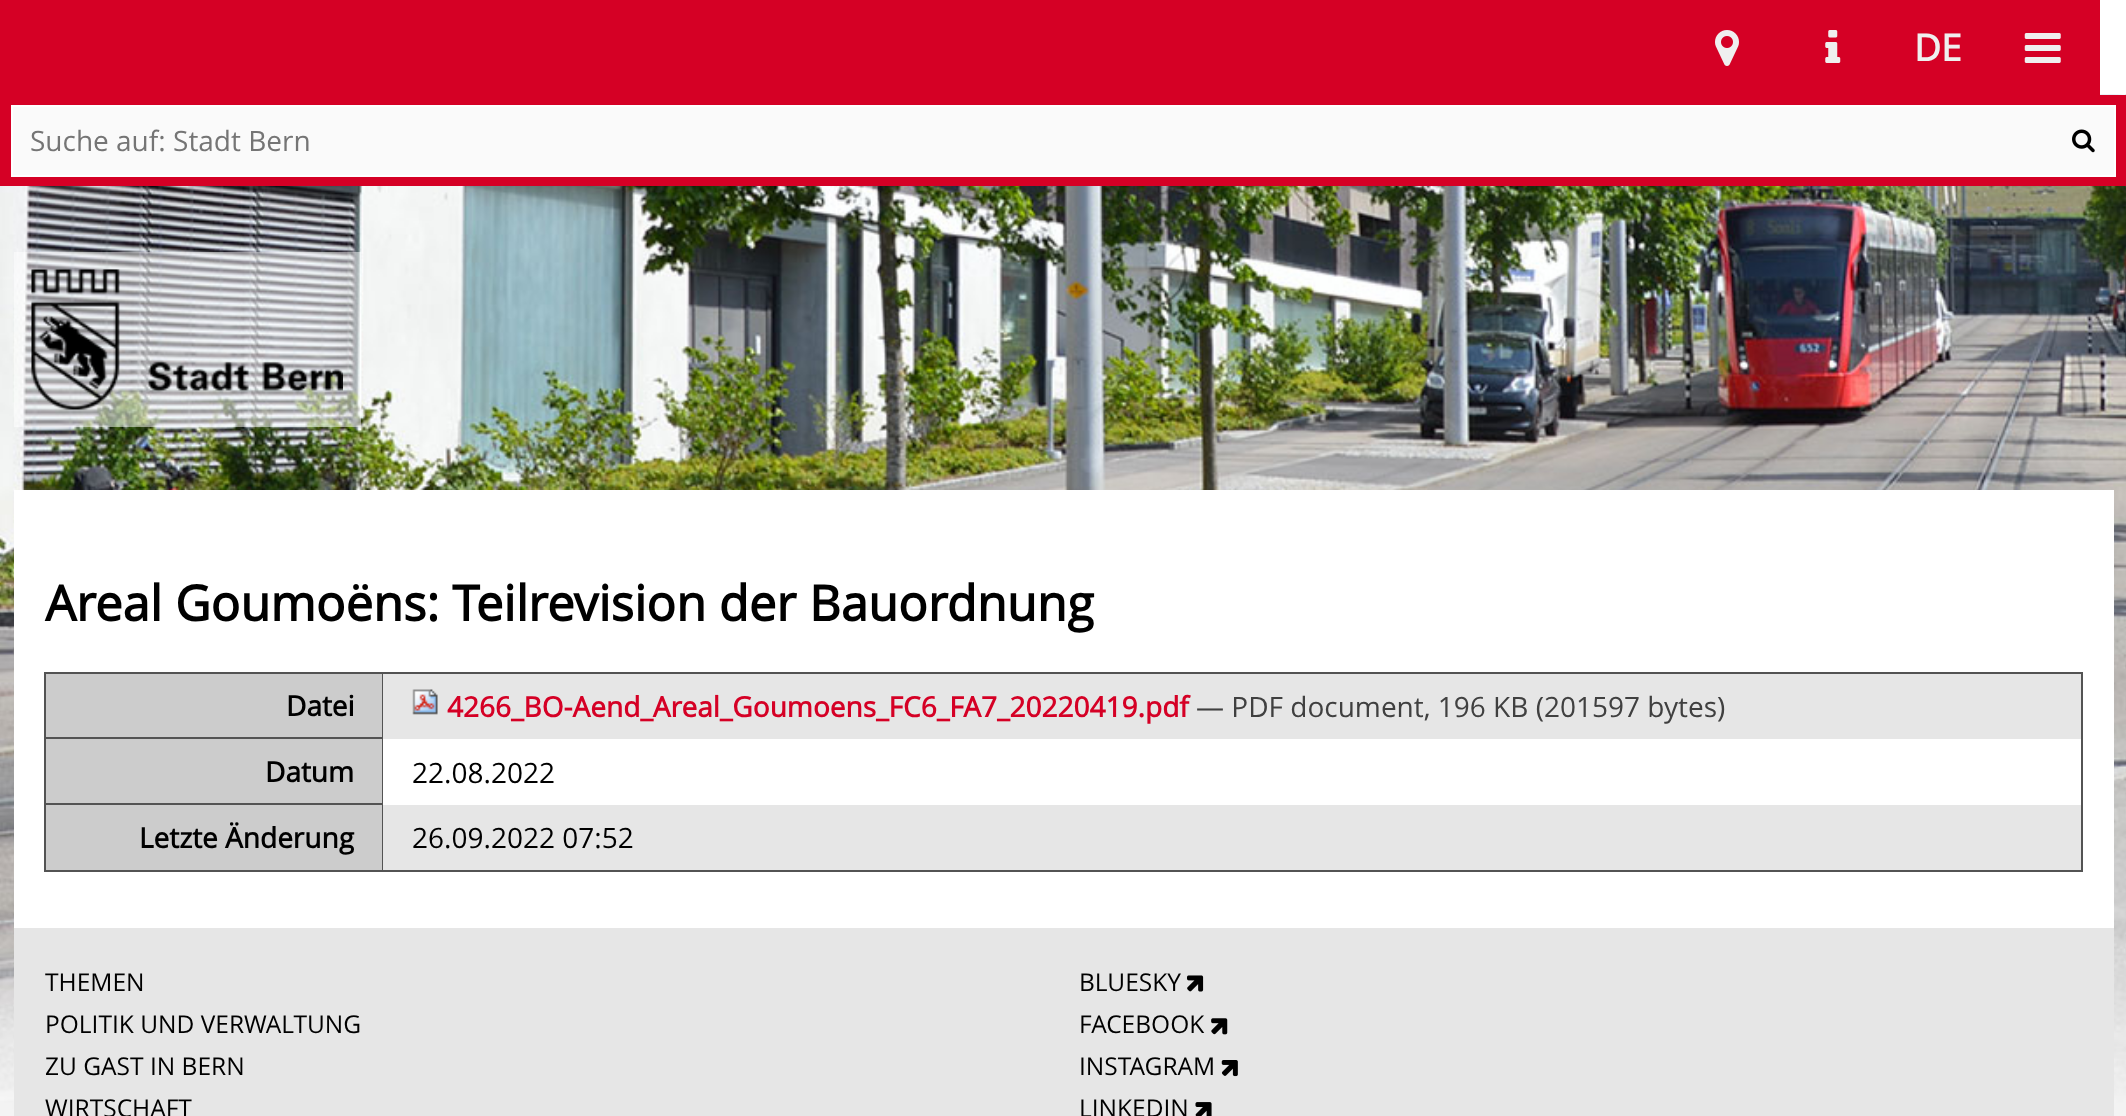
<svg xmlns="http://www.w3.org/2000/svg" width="2126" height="1116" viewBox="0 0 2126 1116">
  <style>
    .t1 { font: bold 37px Open Sans; fill: #efefef; }
    .t2 { font: 28px Open Sans; fill: #757575; }
    .t3 { font: bold 49px Open Sans; fill: #000; }
    .t4 { font: bold 28px Open Sans; fill: #000; }
    .t5 { font: bold 28px Open Sans; fill: #d50025; }
    .t6 { font: 28px Open Sans; fill: #404040; }
    .t7 { font: 28px Open Sans; fill: #000; }
    .t8 { font: 24.5px Open Sans; fill: #000; }
  </style>
  <rect width="100%" height="100%" fill="#fff"/>
  <image x="0" y="94" width="2126" height="1022" href="images/1.png"/>
  <rect x="0" y="0" width="2100" height="95" fill="#d50025"/>
  <image x="1715" y="30" width="24" height="36" href="images/2.png"/>
  <image x="1825" y="30" width="16" height="33" href="images/3.png"/>
  <text x="1914" y="61" class="t1">DE</text>
  <image x="2024" y="33" width="37" height="30" href="images/4.png"/>
  <rect x="0" y="95" width="2126" height="91" fill="#d50025"/>
  <rect x="12" y="106" width="2103" height="70" fill="#fafafa" stroke="#fff" stroke-width="2"/>
  <text x="30" y="151" class="t2">Suche auf: Stadt Bern</text>
  <image x="2072" y="129" width="23" height="24" href="images/5.png"/>
  <rect x="14" y="252" width="347" height="175" fill="#ffffff80"/>
  <image x="31" y="269" width="312" height="141" href="images/6.png"/>
  <rect x="14" y="490" width="2100" height="438" fill="#fff"/>
  <text x="45" y="621" class="t3">Areal Goumoëns: Teilrevision der Bauordnung</text>
  <rect x="45" y="673" width="2037" height="198" fill="none" stroke="#535353" stroke-width="2"/>
  <rect x="46" y="674" width="336" height="63" fill="#ccc"/>
  <rect x="382" y="674" width="1" height="196" fill="#535353"/>
  <rect x="46" y="737" width="337" height="2" fill="#535353"/>
  <text x="286" y="716" class="t4">Datei</text>
  <rect x="383" y="674" width="1698" height="65" fill="#e6e6e6"/>
  <image x="412" y="689" width="26" height="26" href="images/7.png"/>
  <text x="447" y="717" class="t5">4266_BO-Aend_Areal_Goumoens_FC6_FA7_20220419.pdf</text>
  <text x="1196" y="717" class="t6">— PDF document, 196 KB (201597 bytes)</text>
  <rect x="46" y="739" width="336" height="64" fill="#ccc"/>
  <rect x="46" y="803" width="337" height="2" fill="#535353"/>
  <text x="265" y="782" class="t4">Datum</text>
  <text x="412" y="783" class="t7">22.08.2022</text>
  <rect x="46" y="805" width="336" height="65" fill="#ccc"/>
  <text x="139" y="848" class="t4">Letzte Änderung</text>
  <rect x="383" y="805" width="1698" height="65" fill="#e6e6e6"/>
  <text x="412" y="848" class="t7">26.09.2022 07:52</text>
  <rect x="14" y="928" width="2100" height="188" fill="#e6e6e6"/>
  <text x="45" y="991" class="t8">THEMEN</text>
  <text x="45" y="1033" class="t8">POLITIK UND VERWALTUNG</text>
  <text x="45" y="1075" class="t8">ZU GAST IN BERN</text>
  <text x="45" y="1117" class="t8">WIRTSCHAFT</text>
  <text x="1079" y="991" class="t8">BLUESKY</text>
  <image x="1187" y="975" width="17" height="17" href="images/8.png"/>
  <text x="1079" y="1033" class="t8">FACEBOOK</text>
  <image x="1211" y="1018" width="17" height="17" href="images/9.png"/>
  <text x="1079" y="1075" class="t8">INSTAGRAM</text>
  <image x="1221" y="1060" width="17" height="17" href="images/10.png"/>
  <text x="1079" y="1117" class="t8">LINKEDIN</text>
  <image x="1195" y="1102" width="17" height="14" href="images/11.png"/>
</svg>
